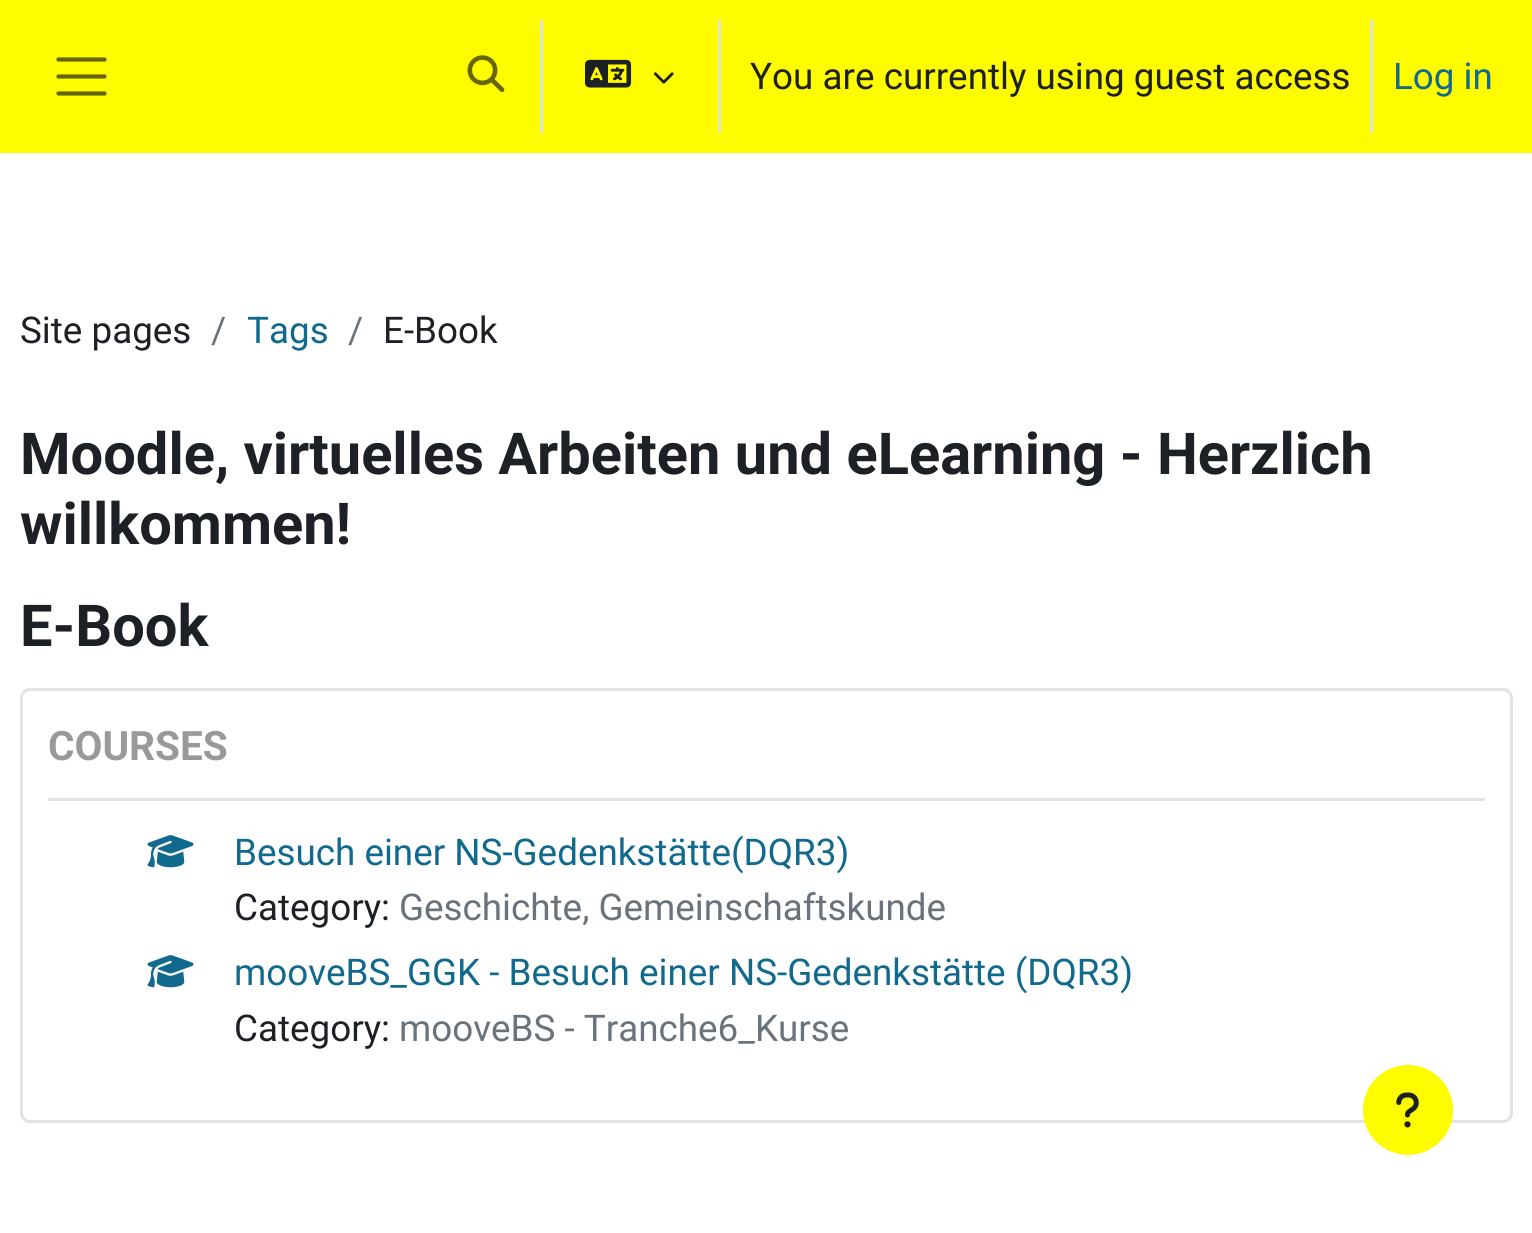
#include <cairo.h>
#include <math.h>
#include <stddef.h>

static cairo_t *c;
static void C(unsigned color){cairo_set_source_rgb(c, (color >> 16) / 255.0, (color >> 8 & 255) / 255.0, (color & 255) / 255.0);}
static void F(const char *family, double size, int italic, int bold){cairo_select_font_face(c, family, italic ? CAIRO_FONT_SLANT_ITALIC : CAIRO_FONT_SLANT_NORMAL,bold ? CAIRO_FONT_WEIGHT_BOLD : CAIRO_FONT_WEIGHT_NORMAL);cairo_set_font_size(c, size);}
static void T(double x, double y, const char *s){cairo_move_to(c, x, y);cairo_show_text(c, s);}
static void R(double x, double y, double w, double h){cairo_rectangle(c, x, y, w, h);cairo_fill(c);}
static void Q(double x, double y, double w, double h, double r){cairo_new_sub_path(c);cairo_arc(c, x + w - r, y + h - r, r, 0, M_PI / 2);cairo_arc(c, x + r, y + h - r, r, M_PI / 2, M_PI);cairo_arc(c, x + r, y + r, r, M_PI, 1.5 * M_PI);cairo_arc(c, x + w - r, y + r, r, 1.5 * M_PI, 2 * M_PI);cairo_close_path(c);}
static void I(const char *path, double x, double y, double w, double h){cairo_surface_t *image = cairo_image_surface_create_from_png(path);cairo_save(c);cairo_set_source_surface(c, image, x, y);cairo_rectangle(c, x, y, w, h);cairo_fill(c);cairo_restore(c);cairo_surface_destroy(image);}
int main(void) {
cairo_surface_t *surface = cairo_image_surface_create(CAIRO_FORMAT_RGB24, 1532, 1233);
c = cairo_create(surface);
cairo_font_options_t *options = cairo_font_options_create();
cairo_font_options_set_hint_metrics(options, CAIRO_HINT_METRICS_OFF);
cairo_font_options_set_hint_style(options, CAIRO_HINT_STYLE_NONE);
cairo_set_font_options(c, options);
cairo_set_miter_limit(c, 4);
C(0xffffff);
cairo_paint(c);
C(0xfffc00);
R(0,0,1532,153);
cairo_new_path(c);
cairo_move_to(c,58.5,59.5);
cairo_line_to(c,104.5,59.5);
cairo_move_to(c,58.5,76.5);
cairo_line_to(c,104.5,76.5);
cairo_move_to(c,58.5,93.5);
cairo_line_to(c,104.5,93.5);
C(0x666500);
cairo_set_line_width(c,4.2);
cairo_set_line_cap(c,CAIRO_LINE_CAP_ROUND);
cairo_stroke(c);
I("1.png",467,55,38,37);
C(0xdee2e6);
R(540,20,3,113);
I("2.png",585,59,47,29);
I("3.png",653,72,21,12);
R(718,20,3,113);
F("Roboto",36.8,0,0);
C(0x1d2125);
T(750,89,"You are currently using guest access");
C(0xdee2e6);
R(1370,20,3,113);
C(0x116a8d);
T(1393,89,"Log in");
C(0x1d2125);
T(20,343,"Site pages");
C(0x6a737b);
T(211,343,"/");
cairo_save(c);
cairo_rectangle(c,248,303,80,55);
cairo_clip(c);
C(0x116a8d);
T(247,343,"Tags");
cairo_restore(c);
T(348,343,"/");
C(0x1d2125);
T(383,343,"E-Book");
F("Roboto",57.8,0,1);
T(20,474,"Moodle, virtuelles Arbeiten und eLearning - Herzlich");
T(20,544,"willkommen!");
T(20,646,"E-Book");
Q(21.5,689.5,1490,432,8.5);
C(0xe3e3e3);
cairo_set_line_width(c,3);
cairo_set_line_cap(c,CAIRO_LINE_CAP_BUTT);
cairo_stroke(c);
R(48,798,1437,3);
F("Roboto",40.5,0,1);
C(0x999999);
T(48,760,"COURSES");
I("4.png",147,835,47,33);
F("Roboto",36.8,0,0);
C(0x116a8d);
T(234,865,"Besuch einer NS-Gedenkstätte(DQR3)");
C(0x1d2125);
T(234,920,"Category:");
C(0x6a737b);
T(399,920,"Geschichte, Gemeinschaftskunde");
I("4.png",147,955,47,33);
C(0x116a8d);
T(234,985,"mooveBS_GGK - Besuch einer NS-Gedenkstätte (DQR3)");
C(0x1d2125);
T(234,1041,"Category:");
C(0x6a737b);
T(399,1041,"mooveBS - Tranche6_Kurse");
C(0xfffc00);
cairo_new_path(c);
cairo_arc(c,1408,1110,45,0,2 * M_PI);
cairo_fill(c);
I("5.png",1396,1092,23,36);
cairo_surface_write_to_png(surface, "o.png");
cairo_font_options_destroy(options);
cairo_destroy(c);
cairo_surface_destroy(surface);
return 0;
}
